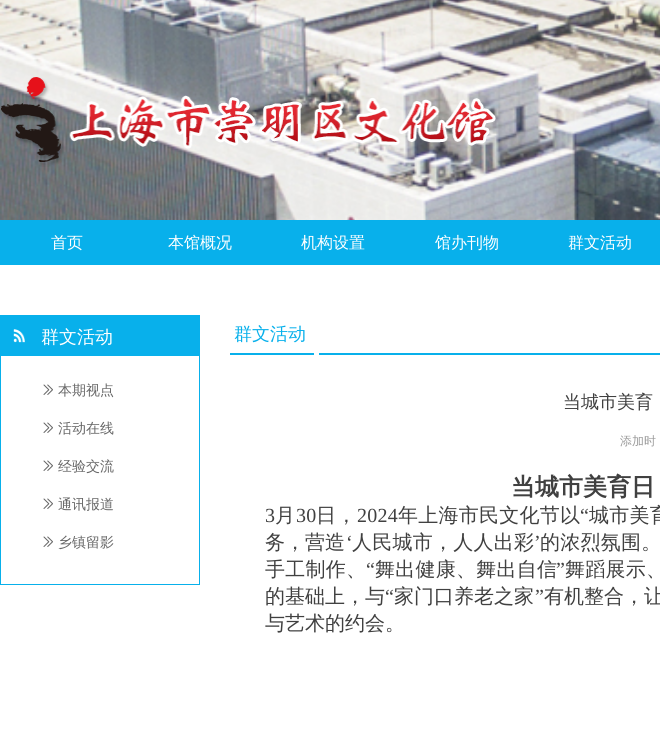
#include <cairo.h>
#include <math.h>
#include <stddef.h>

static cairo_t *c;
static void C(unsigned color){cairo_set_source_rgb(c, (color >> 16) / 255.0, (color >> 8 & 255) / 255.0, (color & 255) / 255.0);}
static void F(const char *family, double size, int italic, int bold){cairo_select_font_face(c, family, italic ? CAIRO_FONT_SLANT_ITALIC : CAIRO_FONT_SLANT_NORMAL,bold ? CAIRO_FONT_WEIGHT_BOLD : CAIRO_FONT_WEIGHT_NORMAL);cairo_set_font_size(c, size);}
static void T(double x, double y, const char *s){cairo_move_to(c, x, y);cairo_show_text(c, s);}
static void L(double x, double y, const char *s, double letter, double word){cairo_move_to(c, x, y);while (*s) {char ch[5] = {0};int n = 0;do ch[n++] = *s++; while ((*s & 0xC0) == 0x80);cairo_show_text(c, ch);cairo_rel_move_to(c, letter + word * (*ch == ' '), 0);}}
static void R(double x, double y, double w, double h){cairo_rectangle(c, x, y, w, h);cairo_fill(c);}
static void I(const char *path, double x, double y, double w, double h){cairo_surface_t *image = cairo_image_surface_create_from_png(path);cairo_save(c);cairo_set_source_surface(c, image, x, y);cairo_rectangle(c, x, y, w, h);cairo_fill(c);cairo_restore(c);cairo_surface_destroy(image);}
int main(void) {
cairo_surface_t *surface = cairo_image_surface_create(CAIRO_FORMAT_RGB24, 660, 742);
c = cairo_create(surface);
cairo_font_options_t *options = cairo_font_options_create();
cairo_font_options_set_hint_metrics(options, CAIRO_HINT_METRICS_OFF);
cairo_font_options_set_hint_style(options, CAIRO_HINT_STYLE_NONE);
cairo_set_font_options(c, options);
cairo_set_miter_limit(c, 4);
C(0xffffff);
cairo_paint(c);
I("1.png",0,0,660,220);
I("2.png",1,77,495,90);
C(0x08b0eb);
R(0,220,660,45);
F("WenQuanYi Zen Hei Medium",16,0,0);
C(0xffffff);
T(51,248,"首页");
T(168,248,"本馆概况");
T(301,248,"机构设置");
T(435,248,"馆办刊物");
T(568,248,"群文活动");
cairo_rectangle(c,.5,315.5,199,269);
C(0x08b0eb);
cairo_set_line_width(c,1);
cairo_stroke(c);
R(1,316,198,40);
I("3.png",13,329,12,14);
F("WenQuanYi Zen Hei Medium",18,0,0);
C(0xffffff);
T(41,343,"群文活动");
I("4.png",43,384,10,11);
F("WenQuanYi Zen Hei Medium",14,0,0);
C(0x666666);
T(58,395,"本期视点");
I("4.png",43,422,10,11);
T(58,433,"活动在线");
I("4.png",43,460,10,11);
T(58,471,"经验交流");
I("4.png",43,498,10,11);
T(58,509,"通讯报道");
I("4.png",43,536,10,11);
T(58,547,"乡镇留影");
I("5.png",230,353,430,2);
F("WenQuanYi Zen Hei Medium",18,0,0);
C(0x08b0eb);
T(234,340,"群文活动");
C(0x404040);
T(563,408,"当城市美育");
F("WenQuanYi Zen Hei Medium",12,0,0);
C(0x999999);
T(620,445,"添加时");
F("WenQuanYi Zen Hei",24,0,1);
C(0x404040);
T(511,495,"当城市美育日");
F("Liberation Serif",20,0,0);
L(265,522,"3",.25,0);
F("WenQuanYi Zen Hei Medium",20,0,0);
L(275,522,"月",.25,0);
F("Liberation Serif",20,0,0);
L(296,522,"30",.25,0);
F("WenQuanYi Zen Hei Medium",20,0,0);
L(316,522,"日，",.25,0);
F("Liberation Serif",20,0,0);
L(357,522,"2024",.25,0);
F("WenQuanYi Zen Hei Medium",20,0,0);
L(398,522,"年上海市民文化节以",.25,0);
F("Liberation Serif",20,0,0);
L(580,522,"“",.25,0);
F("WenQuanYi Zen Hei Medium",20,0,0);
L(589,522,"城市美育",.25,0);
T(265,549,"务，营造");
F("Liberation Serif",20,0,0);
L(346,549,"‘",.25,0);
F("WenQuanYi Zen Hei Medium",20,0,0);
L(352,549,"人民城市，人人出彩",.25,0);
F("Liberation Serif",20,0,0);
L(534,549,"’",.25,0);
F("WenQuanYi Zen Hei Medium",20,0,0);
L(540,549,"的浓烈氛围。",.25,0);
L(265,576,"手工制作、",.25,0);
F("Liberation Serif",20,0,0);
L(366,576,"“",.25,0);
F("WenQuanYi Zen Hei Medium",20,0,0);
L(375,576,"舞出健康、舞出自信",.25,0);
F("Liberation Serif",20,0,0);
L(556,576,"”",.25,0);
F("WenQuanYi Zen Hei Medium",20,0,0);
L(565,576,"舞蹈展示、",.25,0);
T(265,603,"的基础上，与");
F("Liberation Serif",20,0,0);
T(385,603,"“");
F("WenQuanYi Zen Hei Medium",20,0,0);
T(394,603,"家门口养老之家");
F("Liberation Serif",20,0,0);
T(535,603,"”");
F("WenQuanYi Zen Hei Medium",20,0,0);
T(544,603,"有机整合，让");
T(265,630,"与艺术的约会。");
cairo_surface_write_to_png(surface, "o.png");
cairo_font_options_destroy(options);
cairo_destroy(c);
cairo_surface_destroy(surface);
return 0;
}
